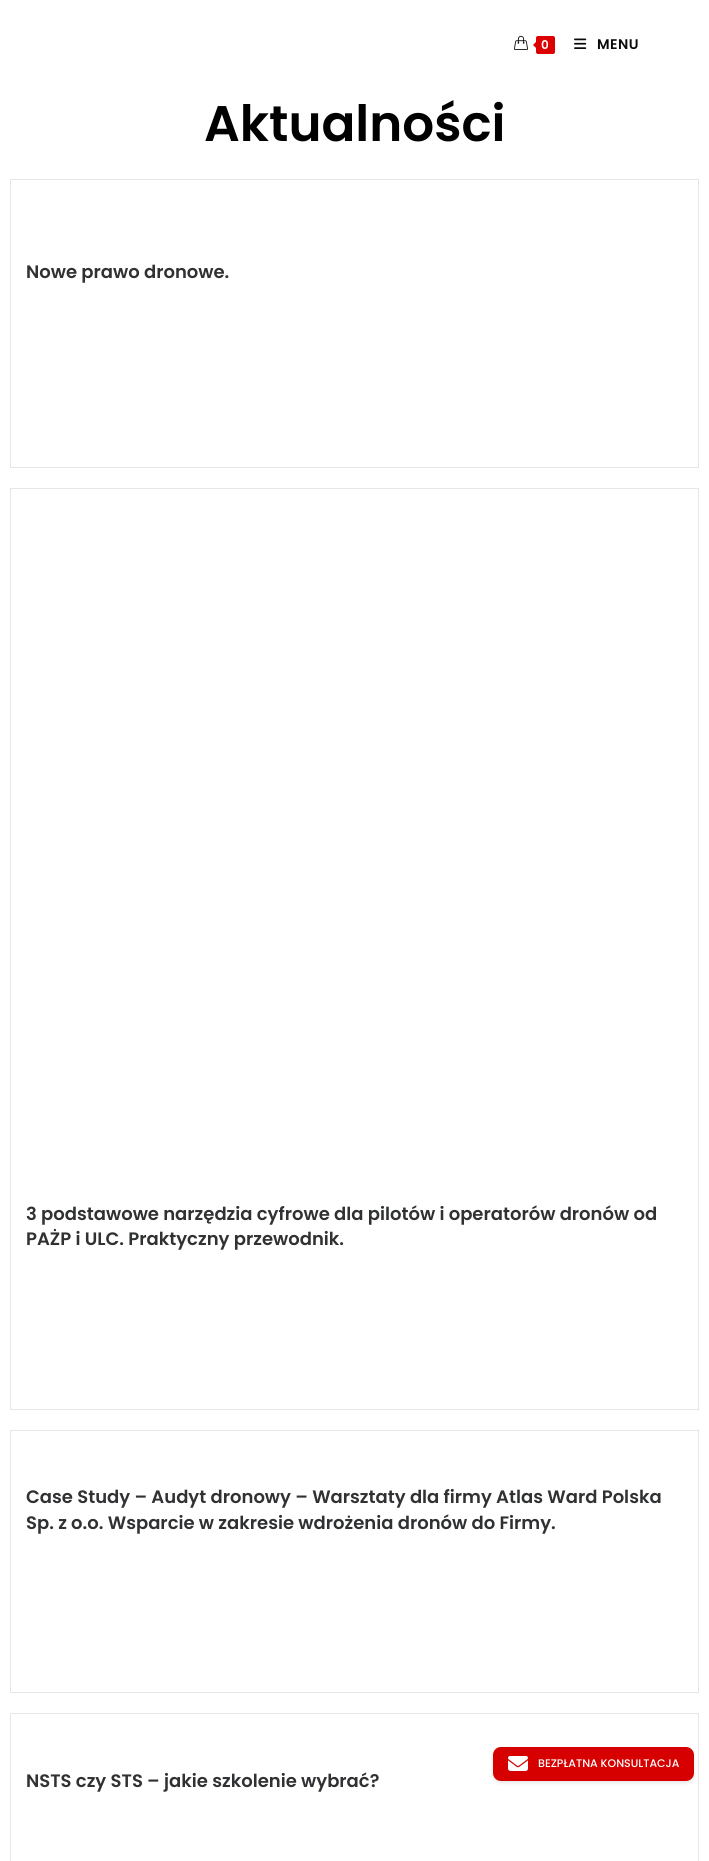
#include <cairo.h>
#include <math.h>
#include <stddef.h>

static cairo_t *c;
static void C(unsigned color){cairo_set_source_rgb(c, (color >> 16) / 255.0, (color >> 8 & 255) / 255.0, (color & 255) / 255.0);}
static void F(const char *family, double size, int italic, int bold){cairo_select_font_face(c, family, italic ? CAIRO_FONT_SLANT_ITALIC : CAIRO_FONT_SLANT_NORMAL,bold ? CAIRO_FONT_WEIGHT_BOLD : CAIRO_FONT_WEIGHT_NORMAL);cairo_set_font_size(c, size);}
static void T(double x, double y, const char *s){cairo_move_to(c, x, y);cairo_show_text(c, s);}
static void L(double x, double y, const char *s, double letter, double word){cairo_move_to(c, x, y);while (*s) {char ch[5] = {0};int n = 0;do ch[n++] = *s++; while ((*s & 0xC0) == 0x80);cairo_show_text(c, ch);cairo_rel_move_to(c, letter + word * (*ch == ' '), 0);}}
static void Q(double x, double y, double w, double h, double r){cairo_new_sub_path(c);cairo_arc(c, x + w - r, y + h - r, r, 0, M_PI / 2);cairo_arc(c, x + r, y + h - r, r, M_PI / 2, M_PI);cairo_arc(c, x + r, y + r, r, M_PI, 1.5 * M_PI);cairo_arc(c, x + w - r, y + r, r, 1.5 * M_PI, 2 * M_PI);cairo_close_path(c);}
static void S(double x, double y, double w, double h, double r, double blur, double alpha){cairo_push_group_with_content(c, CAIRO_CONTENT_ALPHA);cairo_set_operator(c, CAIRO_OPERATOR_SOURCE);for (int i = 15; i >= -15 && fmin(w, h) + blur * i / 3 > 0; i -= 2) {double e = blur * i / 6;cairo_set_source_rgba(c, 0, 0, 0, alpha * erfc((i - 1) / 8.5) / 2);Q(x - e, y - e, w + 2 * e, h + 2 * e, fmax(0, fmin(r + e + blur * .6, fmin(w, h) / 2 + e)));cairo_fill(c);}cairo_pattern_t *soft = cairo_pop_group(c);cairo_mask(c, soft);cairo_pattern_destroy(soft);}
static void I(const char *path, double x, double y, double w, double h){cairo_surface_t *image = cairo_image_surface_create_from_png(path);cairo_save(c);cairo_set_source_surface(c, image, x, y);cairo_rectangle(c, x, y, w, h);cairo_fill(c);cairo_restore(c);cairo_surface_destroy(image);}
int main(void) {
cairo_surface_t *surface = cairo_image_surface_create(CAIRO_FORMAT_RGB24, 709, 1861);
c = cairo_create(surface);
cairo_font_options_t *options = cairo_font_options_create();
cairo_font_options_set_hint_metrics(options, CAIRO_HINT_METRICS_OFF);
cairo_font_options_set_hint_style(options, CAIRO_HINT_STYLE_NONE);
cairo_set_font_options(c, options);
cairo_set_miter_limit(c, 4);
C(0xffffff);
cairo_paint(c);
I("1.png",514,35,14,15);
C(0xdd0000);
Q(536,36,19,18,2);
cairo_fill(c);
cairo_new_path(c);
cairo_move_to(c,538,40);
cairo_line_to(c,538,50);
cairo_line_to(c,533,45);
cairo_close_path(c);
cairo_fill(c);
F("Poppins SemiBold",12,0,0);
C(0xffffff);
L(541,49,"0",.5,0);
I("2.png",574,38,13,11);
F("Poppins SemiBold",14,0,0);
C(0x0a0a0a);
L(597,49,"MENU",.5,0);
F("Poppins SemiBold",50,0,0);
C(0x000000);
T(204,141,"Aktualności");
cairo_rectangle(c,10.5,179.5,688,288);
C(0xe6e6e6);
cairo_set_line_width(c,1);
cairo_stroke(c);
F("Poppins SemiBold",18,0,0);
C(0x303133);
T(26,278,"Nowe prawo dronowe.");
cairo_rectangle(c,10.5,488.5,688,921);
C(0xe6e6e6);
cairo_stroke(c);
C(0x303133);
T(26,1220,"3 podstawowe narzędzia cyfrowe dla pilotów i operatorów dronów od");
T(26,1245,"PAŻP i ULC. Praktyczny przewodnik.");
cairo_rectangle(c,10.5,1430.5,688,262);
C(0xe6e6e6);
cairo_stroke(c);
C(0x303133);
T(26,1503,"Case Study – Audyt dronowy – Warsztaty dla firmy Atlas Ward Polska");
T(26,1529,"Sp. z o.o. Wsparcie w zakresie wdrożenia dronów do Firmy.");
cairo_rectangle(c,10.5,1713.5,688,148);
C(0xe6e6e6);
cairo_stroke(c);
C(0x303133);
T(26,1787,"NSTS czy STS – jakie szkolenie wybrać?");
C(0x000000);
S(493,1749,201,34,8,2,.1);
C(0xd60000);
Q(493,1747,201,34,8);
cairo_fill(c);
I("3.png",508,1756,20,15);
F("Poppins Medium",11,0,0);
C(0xffffff);
T(538,1767,"BEZPŁATNA KONSULTACJA");
cairo_surface_write_to_png(surface, "o.png");
cairo_font_options_destroy(options);
cairo_destroy(c);
cairo_surface_destroy(surface);
return 0;
}
